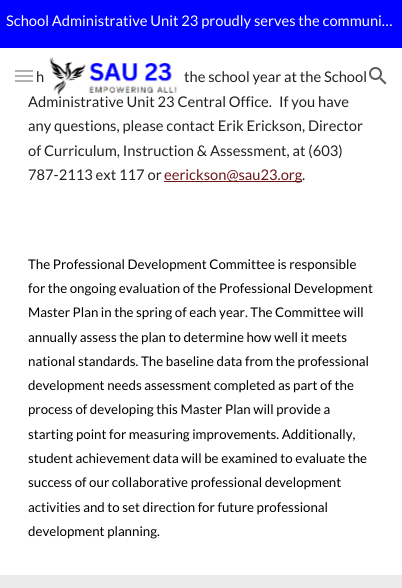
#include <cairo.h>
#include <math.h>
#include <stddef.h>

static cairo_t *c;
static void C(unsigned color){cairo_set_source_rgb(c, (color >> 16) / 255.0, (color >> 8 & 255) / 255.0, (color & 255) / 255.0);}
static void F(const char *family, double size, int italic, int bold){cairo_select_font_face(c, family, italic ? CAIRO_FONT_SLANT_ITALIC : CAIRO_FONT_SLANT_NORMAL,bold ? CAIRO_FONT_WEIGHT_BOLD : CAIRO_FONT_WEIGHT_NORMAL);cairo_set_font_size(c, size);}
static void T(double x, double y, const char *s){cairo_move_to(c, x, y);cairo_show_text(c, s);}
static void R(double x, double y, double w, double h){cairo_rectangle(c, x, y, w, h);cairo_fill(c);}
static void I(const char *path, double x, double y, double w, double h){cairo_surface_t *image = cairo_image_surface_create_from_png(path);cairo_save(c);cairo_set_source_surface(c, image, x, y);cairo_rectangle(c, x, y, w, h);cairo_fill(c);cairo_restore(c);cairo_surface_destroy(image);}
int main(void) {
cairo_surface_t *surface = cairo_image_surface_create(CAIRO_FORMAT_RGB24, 402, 588);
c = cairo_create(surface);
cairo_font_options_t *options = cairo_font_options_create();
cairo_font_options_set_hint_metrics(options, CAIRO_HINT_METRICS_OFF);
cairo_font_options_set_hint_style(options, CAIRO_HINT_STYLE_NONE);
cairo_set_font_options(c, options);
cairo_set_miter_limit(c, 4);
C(0xffffff);
cairo_paint(c);
C(0x0000ff);
R(0,0,402,48);
F("Lato",14.7,0,0);
C(0xffffff);
T(6,26,"School Administrative Unit 23 proudly serves the communi…");
C(0xb2b2b2);
R(15,70,18,2);
R(15,75,18,2);
R(15,80,18,2);
C(0x212121);
T(28,107,"Administrative Unit 23 Central Office.");
I("1.png",47,57,131,40);
I("2.png",369,67,18,18);
T(36,82,"h");
T(184,82,"the school year at the School");
T(279,107,"If you have");
T(28,131,"any questions, please contact Erik Erickson, Director");
T(28,156,"of Curriculum, Instruction & Assessment, at (603)");
T(28,180,"787-2113 ext 117 or");
C(0x6d1616);
R(164,181,138,1);
T(164,180,"eerickson@sau23.org");
C(0x212121);
T(302,180,".");
F("Lato",13.3,0,0);
C(0x000000);
T(28,269,"The Professional Development Committee is responsible");
T(28,293,"for the ongoing evaluation of the Professional Development");
T(28,317,"Master Plan in the spring of each year. The Committee will");
T(28,342,"annually assess the plan to determine how well it meets");
T(28,366,"national standards. The baseline data from the professional");
T(28,390,"development needs assessment completed as part of the");
T(28,414,"process of developing this Master Plan will provide a");
T(28,439,"starting point for measuring improvements. Additionally,");
T(28,463,"student achievement data will be examined to evaluate the");
T(28,487,"success of our collaborative professional development");
T(28,512,"activities and to set direction for future professional");
T(28,536,"development planning.");
C(0xebebeb);
R(0,575,402,13);
cairo_surface_write_to_png(surface, "o.png");
cairo_font_options_destroy(options);
cairo_destroy(c);
cairo_surface_destroy(surface);
return 0;
}
